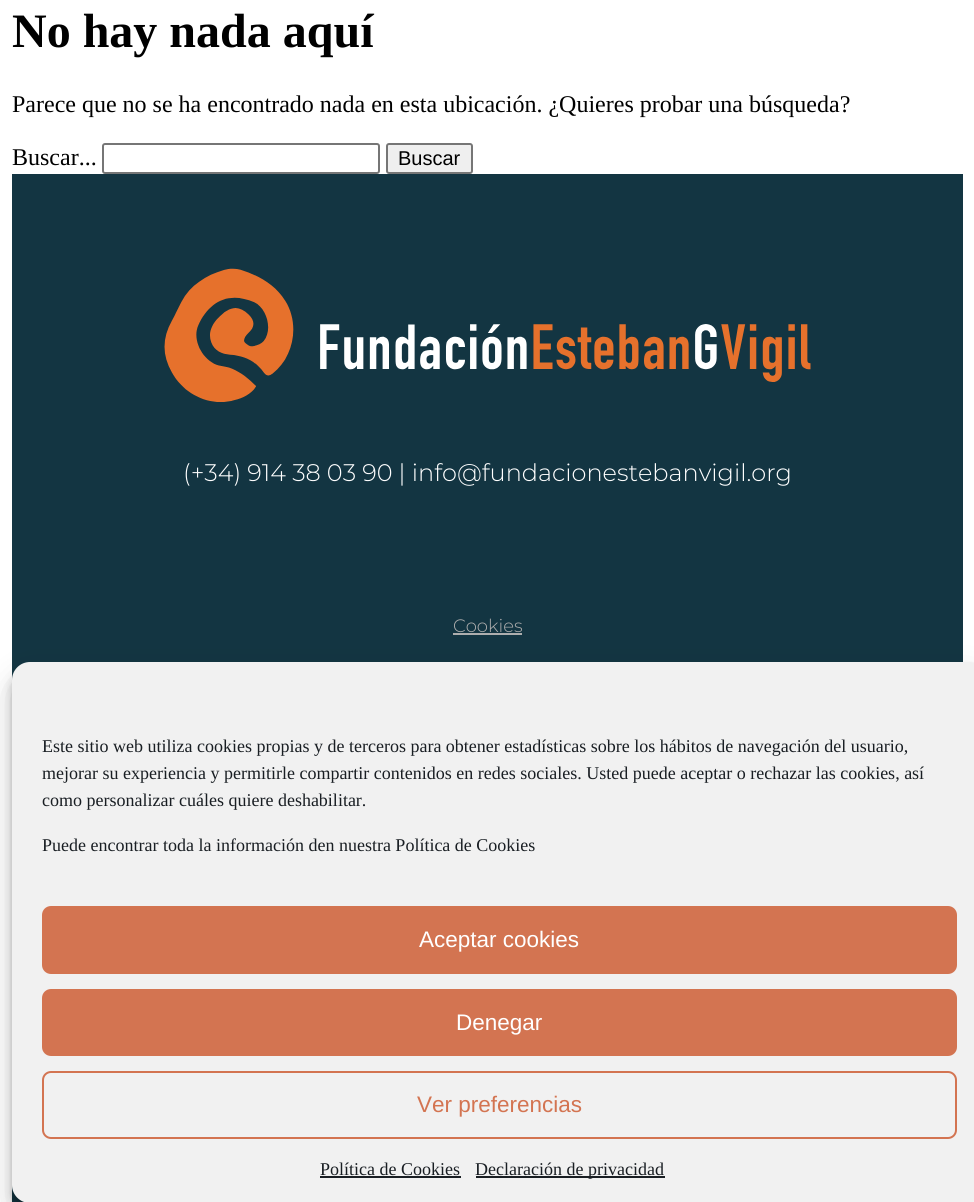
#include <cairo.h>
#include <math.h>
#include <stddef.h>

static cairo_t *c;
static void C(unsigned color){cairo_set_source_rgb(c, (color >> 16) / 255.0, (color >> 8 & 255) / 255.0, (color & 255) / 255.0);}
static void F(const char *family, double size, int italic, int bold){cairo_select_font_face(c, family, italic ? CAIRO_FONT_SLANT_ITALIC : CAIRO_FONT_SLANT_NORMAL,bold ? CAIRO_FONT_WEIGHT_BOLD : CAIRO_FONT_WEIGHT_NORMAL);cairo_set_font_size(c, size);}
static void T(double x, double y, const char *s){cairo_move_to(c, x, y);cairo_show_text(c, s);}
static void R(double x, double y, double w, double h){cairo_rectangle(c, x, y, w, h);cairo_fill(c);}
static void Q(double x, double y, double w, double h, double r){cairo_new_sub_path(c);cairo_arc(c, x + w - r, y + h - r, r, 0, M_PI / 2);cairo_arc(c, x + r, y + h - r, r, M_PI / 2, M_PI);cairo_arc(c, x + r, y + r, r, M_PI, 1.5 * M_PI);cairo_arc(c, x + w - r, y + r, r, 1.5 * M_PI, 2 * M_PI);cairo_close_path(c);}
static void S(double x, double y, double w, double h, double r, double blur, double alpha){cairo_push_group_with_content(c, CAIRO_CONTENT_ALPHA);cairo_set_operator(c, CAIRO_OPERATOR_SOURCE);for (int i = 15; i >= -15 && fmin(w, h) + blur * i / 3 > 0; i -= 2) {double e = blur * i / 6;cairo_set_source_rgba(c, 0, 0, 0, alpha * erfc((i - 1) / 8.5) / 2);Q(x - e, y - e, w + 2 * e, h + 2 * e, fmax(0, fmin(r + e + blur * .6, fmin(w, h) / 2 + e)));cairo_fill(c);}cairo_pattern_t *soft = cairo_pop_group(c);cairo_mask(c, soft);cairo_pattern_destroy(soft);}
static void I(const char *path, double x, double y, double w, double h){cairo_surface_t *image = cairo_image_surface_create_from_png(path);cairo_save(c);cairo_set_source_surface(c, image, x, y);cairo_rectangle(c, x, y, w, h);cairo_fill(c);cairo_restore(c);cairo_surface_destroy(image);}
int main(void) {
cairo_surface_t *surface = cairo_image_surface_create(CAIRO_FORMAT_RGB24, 974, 1202);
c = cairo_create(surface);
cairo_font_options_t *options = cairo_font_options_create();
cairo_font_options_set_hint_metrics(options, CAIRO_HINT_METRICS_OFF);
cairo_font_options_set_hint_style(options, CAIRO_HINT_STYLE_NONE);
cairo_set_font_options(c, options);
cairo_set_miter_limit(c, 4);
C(0xffffff);
cairo_paint(c);
F("Liberation Serif",48,0,1);
C(0x000000);
T(12,47,"No hay nada aquí");
F("Liberation Serif",24,0,0);
T(12,112,"Parece que no se ha encontrado nada en esta ubicación. ¿Quieres probar una búsqueda?");
T(12,165,"Buscar...");
Q(103,144,276,29,2);
C(0x767676);
cairo_stroke(c);
C(0xefefef);
Q(387,144,85,29,2);
cairo_fill_preserve(c);
C(0x767676);
cairo_stroke(c);
F("Liberation Sans",20,0,0);
C(0x000000);
T(398,165,"Buscar");
C(0x133542);
R(12,174,951,1028);
I("1.png",164,268,647,134);
F("Montserrat Light",24,0,0);
C(0xffffff);
T(183,481,"(+34) 914 38 03 90 | info@fundacionestebanvigil.org");
F("Montserrat Light",18,0,0);
C(0xaeaeae);
T(453,632,"Cookies");
R(453,633,69,2);
C(0x000000);
S(12,671,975,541,18,4.5,.23);
S(12,677,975,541,18,15,.19);
C(0xf1f1f1);
Q(12,662,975,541,18);
cairo_fill(c);
F("Liberation Serif",18,0,0);
C(0x191e23);
T(42,752,"Este sitio web utiliza cookies propias y de terceros para obtener estadísticas sobre los hábitos de navegación del usuario,");
T(42,779,"mejorar su experiencia y permitirle compartir contenidos en redes sociales. Usted puede aceptar o rechazar las cookies, así");
T(42,806,"como personalizar cuáles quiere deshabilitar.");
T(42,851,"Puede encontrar toda la información den nuestra Política de Cookies");
C(0xd37451);
Q(43,907,913,66,8);
cairo_fill_preserve(c);
cairo_stroke(c);
F("Liberation Sans",22.5,0,0);
C(0xffffff);
T(419,947,"Aceptar cookies");
C(0xd37451);
Q(43,990,913,65,8);
cairo_fill_preserve(c);
cairo_stroke(c);
C(0xffffff);
T(456,1030,"Denegar");
Q(43,1072,913,66,8);
C(0xd37451);
cairo_stroke(c);
T(417,1112,"Ver preferencias");
F("Liberation Serif",18,0,0);
C(0x191e23);
T(320,1175,"Política de Cookies");
R(320,1176,141,2);
R(476,1176,189,2);
T(475,1175,"Declaración de privacidad");
cairo_surface_write_to_png(surface, "o.png");
cairo_font_options_destroy(options);
cairo_destroy(c);
cairo_surface_destroy(surface);
return 0;
}
